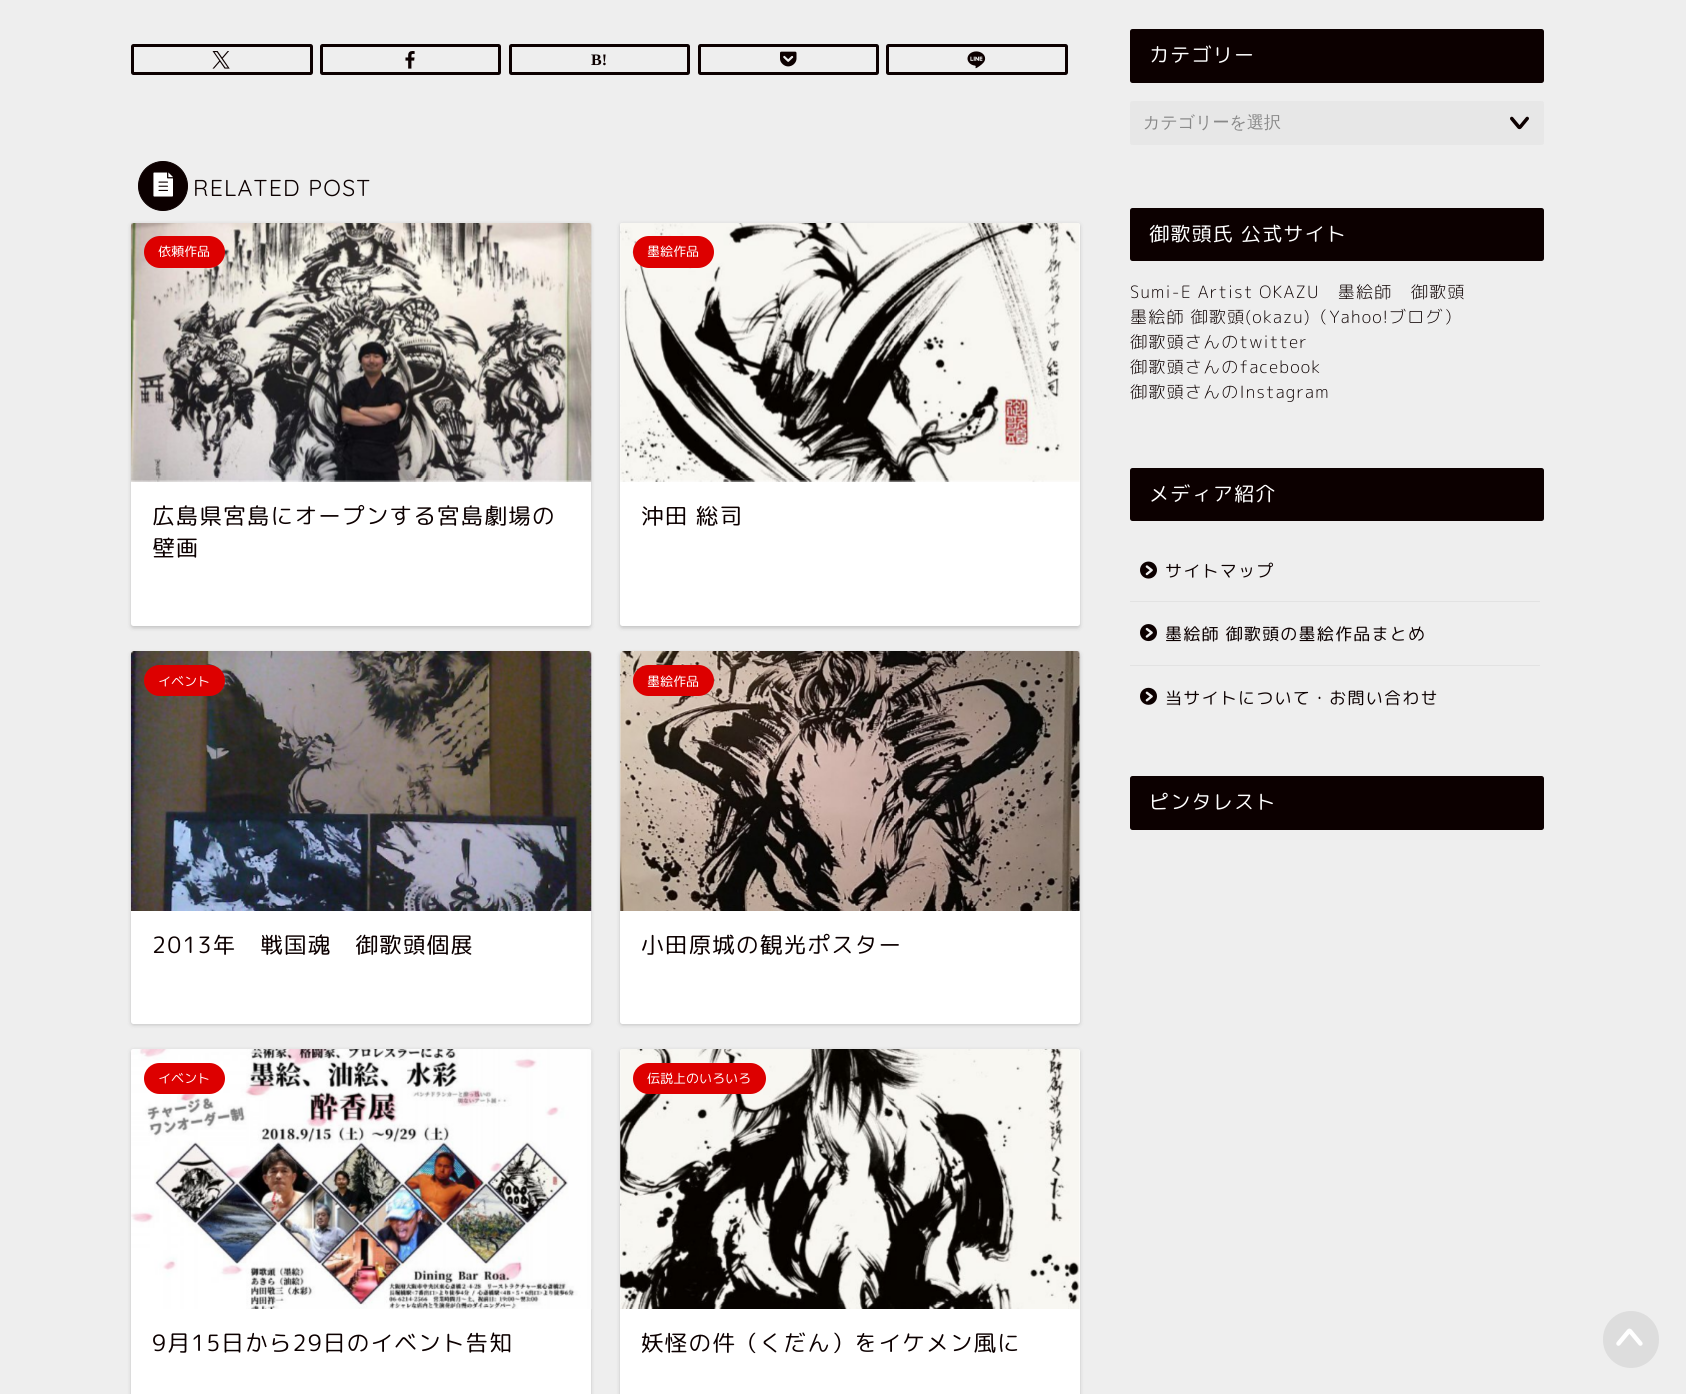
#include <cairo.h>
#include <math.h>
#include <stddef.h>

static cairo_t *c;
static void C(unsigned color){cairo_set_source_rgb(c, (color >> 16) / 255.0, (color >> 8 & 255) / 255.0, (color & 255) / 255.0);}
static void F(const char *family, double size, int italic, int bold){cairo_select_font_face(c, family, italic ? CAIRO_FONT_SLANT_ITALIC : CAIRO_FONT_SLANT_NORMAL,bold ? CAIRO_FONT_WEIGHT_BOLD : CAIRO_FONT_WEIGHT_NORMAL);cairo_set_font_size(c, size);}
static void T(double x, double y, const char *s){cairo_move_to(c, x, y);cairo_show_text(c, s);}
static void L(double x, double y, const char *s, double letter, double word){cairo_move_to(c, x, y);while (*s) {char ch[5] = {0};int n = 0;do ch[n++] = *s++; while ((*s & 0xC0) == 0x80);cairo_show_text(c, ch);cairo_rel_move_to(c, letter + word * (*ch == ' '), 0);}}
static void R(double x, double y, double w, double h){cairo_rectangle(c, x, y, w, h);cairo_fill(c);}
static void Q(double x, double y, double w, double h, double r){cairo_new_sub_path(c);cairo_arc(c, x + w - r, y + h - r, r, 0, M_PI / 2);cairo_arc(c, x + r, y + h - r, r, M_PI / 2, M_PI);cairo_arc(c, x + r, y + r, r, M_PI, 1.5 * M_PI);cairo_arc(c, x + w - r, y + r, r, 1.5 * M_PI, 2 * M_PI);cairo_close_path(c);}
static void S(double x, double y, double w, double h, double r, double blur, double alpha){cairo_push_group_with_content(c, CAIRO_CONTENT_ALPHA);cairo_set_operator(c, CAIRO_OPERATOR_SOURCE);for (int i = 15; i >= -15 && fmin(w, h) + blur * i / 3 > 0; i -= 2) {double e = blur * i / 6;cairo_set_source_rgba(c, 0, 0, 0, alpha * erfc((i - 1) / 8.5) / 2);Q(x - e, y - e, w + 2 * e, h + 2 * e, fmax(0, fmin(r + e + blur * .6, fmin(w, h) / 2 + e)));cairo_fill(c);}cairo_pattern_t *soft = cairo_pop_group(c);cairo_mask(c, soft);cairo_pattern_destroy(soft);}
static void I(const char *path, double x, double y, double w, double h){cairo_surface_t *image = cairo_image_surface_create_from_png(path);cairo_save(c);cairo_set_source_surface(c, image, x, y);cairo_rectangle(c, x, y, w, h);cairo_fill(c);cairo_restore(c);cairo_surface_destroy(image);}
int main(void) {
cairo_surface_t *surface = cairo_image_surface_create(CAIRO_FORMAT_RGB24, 1686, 1394);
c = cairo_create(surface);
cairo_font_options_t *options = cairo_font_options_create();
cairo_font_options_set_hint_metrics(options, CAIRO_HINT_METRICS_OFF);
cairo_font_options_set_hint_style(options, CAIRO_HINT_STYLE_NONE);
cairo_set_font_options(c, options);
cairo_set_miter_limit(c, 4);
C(0xeeeeee);
cairo_paint(c);
Q(132.5,45.5,179,28,1);
C(0x0c0000);
cairo_set_line_width(c,3);
cairo_stroke(c);
I("1.png",212,51,18,18);
Q(321.5,45.5,178,28,1);
cairo_stroke(c);
I("2.png",405,51,10,18);
Q(510.5,45.5,178,28,1);
cairo_stroke(c);
F("Liberation Serif",16,0,1);
T(591,65,"B!");
Q(699.5,45.5,178,28,1);
cairo_stroke(c);
I("3.png",780,51,17,16);
Q(887.5,45.5,179,28,1);
cairo_stroke(c);
I("4.png",967,51,19,18);
cairo_arc(c,163,186,24.5,0,2 * M_PI);
cairo_fill_preserve(c);
cairo_set_line_width(c,1);
cairo_stroke(c);
I("5.png",153,172,20,25);
F("Quicksand",23,0,0);
L(193,196,"RELATED POST",1.25,0);
C(0x000000);
S(131,224,460,404,2.5,2,.18);
C(0xffffff);
Q(131,223,460,403,2.5);
cairo_fill(c);
I("6.png",131,223,461,259);
C(0xdd0000);
Q(144,236,81,32,16);
cairo_fill(c);
F("Rounded Mplus 1c",13,0,0);
C(0xffffff);
T(158,256,"依頼作品");
F("Rounded Mplus 1c",22.5,0,0);
C(0x0c0000);
L(152,524,"広島県宮島にオープンする宮島劇場の",1.25,0);
L(152,556,"壁画",1.25,0);
C(0x000000);
S(620,224,460,404,2.5,2,.18);
C(0xffffff);
Q(620,223,460,403,2.5);
cairo_fill(c);
I("7.png",620,223,460,259);
C(0xdd0000);
Q(633,236,81,32,16);
cairo_fill(c);
F("Rounded Mplus 1c",13,0,0);
C(0xffffff);
T(647,256,"墨絵作品");
F("Rounded Mplus 1c",22.5,0,0);
C(0x0c0000);
L(641,524,"沖田 総司",1.25,0);
C(0x000000);
S(131,653,460,372,2.5,2,.18);
C(0xffffff);
Q(131,651,460,373,2.5);
cairo_fill(c);
I("8.png",131,651,461,260);
C(0xdd0000);
Q(144,665,81,31,15.5);
cairo_fill(c);
F("Rounded Mplus 1c",13,0,0);
C(0xffffff);
T(158,686,"イベント");
F("Rounded Mplus 1c",22.5,0,0);
C(0x0c0000);
L(152,953,"2013年　戦国魂　御歌頭個展",1.25,0);
C(0x000000);
S(620,653,460,372,2.5,2,.18);
C(0xffffff);
Q(620,651,460,373,2.5);
cairo_fill(c);
I("9.png",620,651,460,260);
C(0xdd0000);
Q(633,665,81,31,15.5);
cairo_fill(c);
F("Rounded Mplus 1c",13,0,0);
C(0xffffff);
T(647,686,"墨絵作品");
F("Rounded Mplus 1c",22.5,0,0);
C(0x0c0000);
L(641,953,"小田原城の観光ポスター",1.25,0);
C(0x000000);
S(131,1050,460,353,2.5,2,.18);
C(0xffffff);
Q(131,1049,460,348,2.5);
cairo_fill(c);
I("10.png",131,1049,461,260);
C(0xdd0000);
Q(144,1063,81,31,15.5);
cairo_fill(c);
F("Rounded Mplus 1c",13,0,0);
C(0xffffff);
T(158,1083,"イベント");
F("Rounded Mplus 1c",22.5,0,0);
C(0x0c0000);
L(152,1351,"9月15日から29日のイベント告知",1.25,0);
C(0x000000);
S(620,1050,460,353,2.5,2,.18);
C(0xffffff);
Q(620,1049,460,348,2.5);
cairo_fill(c);
I("11.png",620,1049,460,260);
C(0xdd0000);
Q(633,1063,133,31,15.5);
cairo_fill(c);
F("Rounded Mplus 1c",13,0,0);
C(0xffffff);
T(647,1083,"伝説上のいろいろ");
F("Rounded Mplus 1c",22.5,0,0);
C(0x0c0000);
L(641,1351,"妖怪の件（くだん）をイケメン風に",1.25,0);
Q(1130,29,414,54,2.5);
cairo_fill(c);
F("Rounded Mplus 1c",20,0,0);
C(0xffffff);
L(1149,62,"カテゴリー",1.25,0);
C(0xe7e7e7);
Q(1130,101,414,44,2.5);
cairo_fill(c);
F("WenQuanYi Zen Hei Medium",17,0,0);
C(0x888888);
T(1143,128,"カテゴリーを選択");
I("12.png",1510,116,19,14);
C(0x0c0000);
Q(1130,208,414,53,2.5);
cairo_fill(c);
F("Rounded Mplus 1c",20,0,0);
C(0xffffff);
L(1149,241,"御歌頭氏 公式サイト",1.25,0);
F("Rounded Mplus 1c Light",17,0,0);
C(0x0c0000);
L(1130,298,"Sumi-E Artist OKAZU　墨絵師　御歌頭",1.25,0);
L(1130,323,"墨絵師 御歌頭(okazu)（Yahoo!ブログ）",1.25,0);
L(1130,348,"御歌頭さんのtwitter",1.25,0);
L(1130,373,"御歌頭さんのfacebook",1.25,0);
L(1130,398,"御歌頭さんのInstagram",1.25,0);
Q(1130,468,414,53,2.5);
cairo_fill(c);
F("Rounded Mplus 1c",20,0,0);
C(0xffffff);
L(1149,501,"メディア紹介",1.25,0);
C(0xe2e2e2);
R(1130,601,410,1);
I("13.png",1140,561,17,18);
F("Rounded Mplus 1c",17,0,0);
C(0x0c0000);
L(1165,577,"サイトマップ",1.25,0);
C(0xe2e2e2);
R(1130,665,410,1);
I("14.png",1140,624,17,18);
C(0x0c0000);
L(1165,640,"墨絵師 御歌頭の墨絵作品まとめ",1.25,0);
I("15.png",1140,687,17,18);
L(1165,704,"当サイトについて・お問い合わせ",1.25,0);
Q(1130,776,414,54,2.5);
cairo_fill(c);
F("Rounded Mplus 1c",20,0,0);
C(0xffffff);
L(1149,809,"ピンタレスト",1.25,0);
C(0xdddddd);
Q(1603,1311,56,57,28);
cairo_fill(c);
I("16.png",1616,1328,27,18);
cairo_surface_write_to_png(surface, "o.png");
cairo_font_options_destroy(options);
cairo_destroy(c);
cairo_surface_destroy(surface);
return 0;
}
